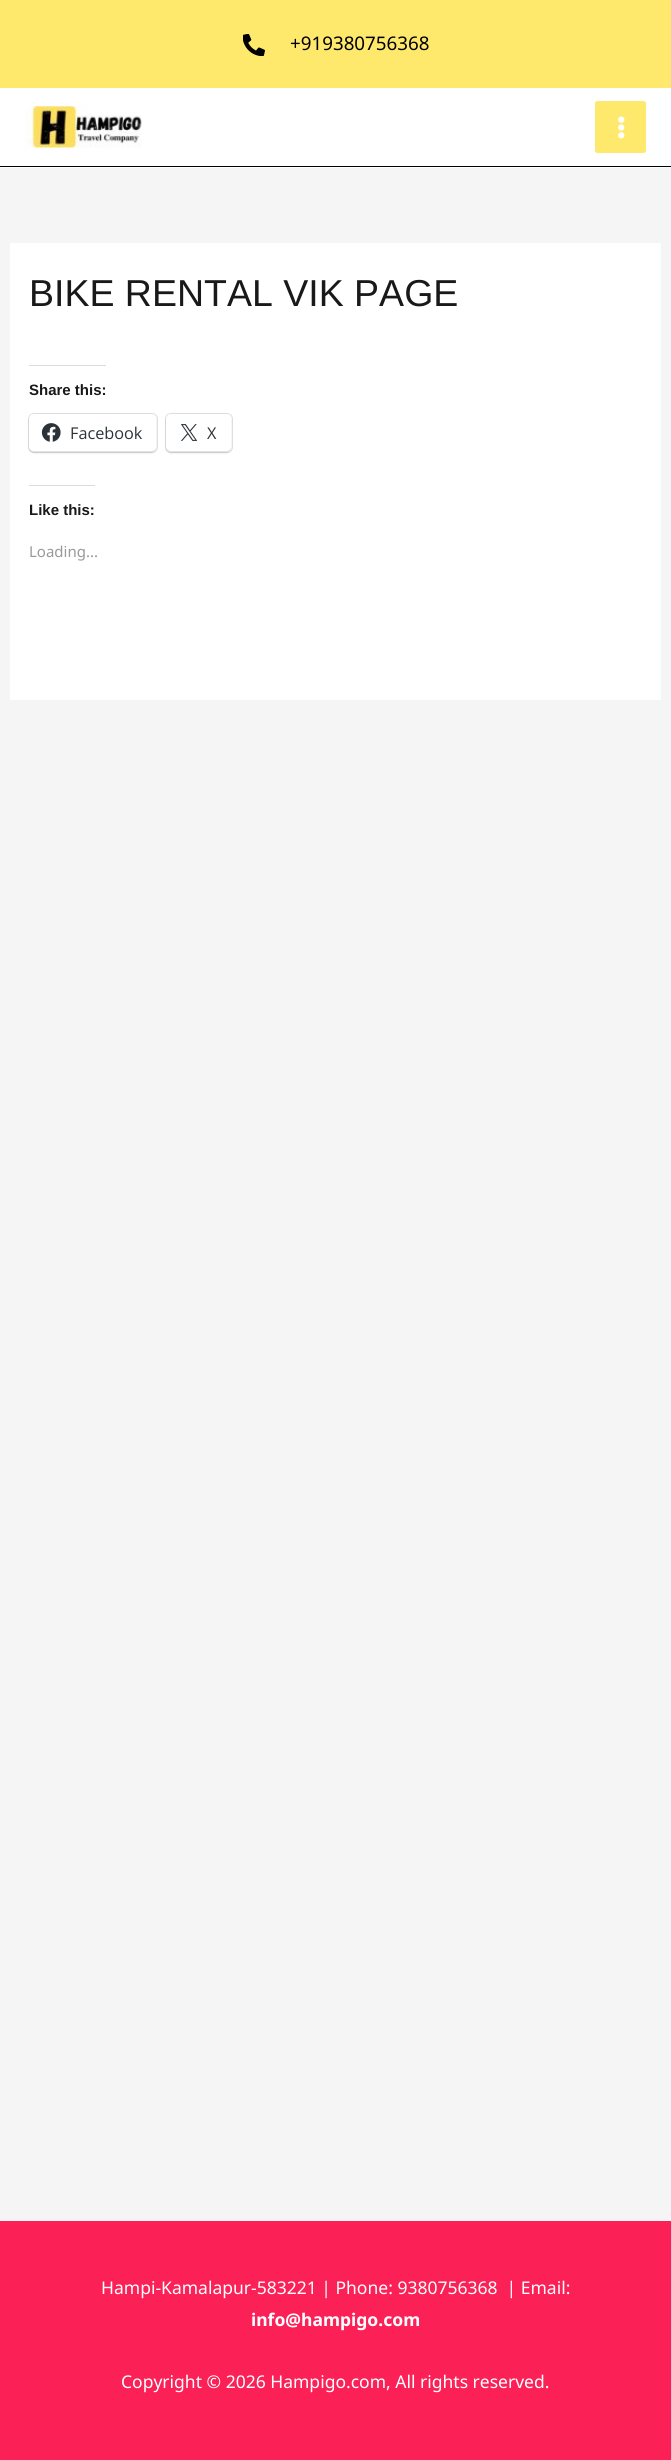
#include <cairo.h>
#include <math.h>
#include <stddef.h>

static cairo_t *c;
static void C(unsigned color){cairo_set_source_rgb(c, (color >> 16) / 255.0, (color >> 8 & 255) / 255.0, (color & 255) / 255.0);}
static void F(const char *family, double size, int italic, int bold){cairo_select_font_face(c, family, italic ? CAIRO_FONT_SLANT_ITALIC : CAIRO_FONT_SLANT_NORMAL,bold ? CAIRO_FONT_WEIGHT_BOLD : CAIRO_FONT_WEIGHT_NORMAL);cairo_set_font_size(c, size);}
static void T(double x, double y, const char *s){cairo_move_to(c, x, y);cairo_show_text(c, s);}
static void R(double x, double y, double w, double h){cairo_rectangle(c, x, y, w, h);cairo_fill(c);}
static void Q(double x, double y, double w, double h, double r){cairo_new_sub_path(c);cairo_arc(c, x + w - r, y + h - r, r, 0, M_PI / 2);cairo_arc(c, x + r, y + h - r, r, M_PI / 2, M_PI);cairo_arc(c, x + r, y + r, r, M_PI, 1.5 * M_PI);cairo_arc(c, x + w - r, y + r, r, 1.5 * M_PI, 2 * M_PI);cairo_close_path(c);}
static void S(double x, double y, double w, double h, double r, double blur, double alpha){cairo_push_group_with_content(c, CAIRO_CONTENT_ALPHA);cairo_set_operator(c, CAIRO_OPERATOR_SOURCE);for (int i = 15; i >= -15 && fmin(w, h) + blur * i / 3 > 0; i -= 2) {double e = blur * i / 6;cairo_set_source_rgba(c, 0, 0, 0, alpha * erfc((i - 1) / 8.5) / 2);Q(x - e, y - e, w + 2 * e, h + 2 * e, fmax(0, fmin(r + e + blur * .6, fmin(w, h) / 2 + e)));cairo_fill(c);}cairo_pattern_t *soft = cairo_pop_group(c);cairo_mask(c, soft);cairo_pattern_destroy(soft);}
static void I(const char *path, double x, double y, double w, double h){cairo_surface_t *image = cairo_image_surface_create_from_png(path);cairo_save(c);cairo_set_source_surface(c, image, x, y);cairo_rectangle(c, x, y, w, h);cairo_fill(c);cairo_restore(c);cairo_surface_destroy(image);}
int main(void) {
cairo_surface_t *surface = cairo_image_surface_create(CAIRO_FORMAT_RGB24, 671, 2460);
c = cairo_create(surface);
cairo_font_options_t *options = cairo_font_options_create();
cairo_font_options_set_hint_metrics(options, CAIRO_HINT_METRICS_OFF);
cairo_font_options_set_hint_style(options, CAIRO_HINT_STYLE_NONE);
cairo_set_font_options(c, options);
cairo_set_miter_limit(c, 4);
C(0xf5f5f5);
cairo_paint(c);
C(0xffe96d);
R(0,0,671,88);
I("1.png",243,34,22,22);
F("Noto Sans",18.75,0,0);
C(0x000000);
T(290,50,"+919380756368");
C(0xffffff);
R(0,88,671,80);
C(0x000000);
R(0,166,671,1);
I("2.png",25,106,117,42);
C(0xffe96d);
Q(595,101,51,52,2.5);
cairo_fill(c);
I("3.png",618,116,7,23);
C(0xffffff);
R(10,243,651,457);
F("Liberation Sans",37.5,0,0);
C(0x191919);
T(29,306,"BIKE RENTAL VIK PAGE");
C(0xdcdcde);
R(29,365,77,1);
F("Liberation Sans",15,0,1);
C(0x191919);
T(29,395,"Share this:");
Q(28.5,413.5,129,39,5.5);
C(0xe0e0e0);
cairo_set_line_width(c,1);
cairo_stroke(c);
C(0x000000);
S(29,415,127,38,5,1,.12);
C(0xffffff);
Q(29,414,127,37,5);
cairo_fill(c);
I("4.png",41,423,20,19);
F("Open Sans",16.25,0,0);
C(0x2c3338);
T(70,439,"Facebook");
Q(165.5,413.5,67,39,5.5);
C(0xe0e0e0);
cairo_stroke(c);
C(0x000000);
S(166,415,65,38,5,1,.12);
C(0xffffff);
Q(166,414,65,37,5);
cairo_fill(c);
I("5.png",180,424,18,17);
C(0x2c3338);
T(207,439,"X");
C(0xdcdcde);
R(29,485,66,1);
F("Liberation Sans",15,0,1);
C(0x191919);
T(29,515,"Like this:");
F("Noto Sans",15,0,0);
C(0x999999);
T(29,557,"Loading...");
C(0xfb2056);
R(0,2221,671,239);
F("Noto Sans",17.5,0,0);
C(0xffffff);
T(101,2294,"Hampi-Kamalapur-583221 | Phone: 9380756368  | Email:");
F("Noto Sans",17.5,0,1);
T(251,2326,"info@hampigo.com");
F("Noto Sans",17.5,0,0);
T(121,2388,"Copyright © 2026 Hampigo.com, All rights reserved.");
cairo_surface_write_to_png(surface, "o.png");
cairo_font_options_destroy(options);
cairo_destroy(c);
cairo_surface_destroy(surface);
return 0;
}
